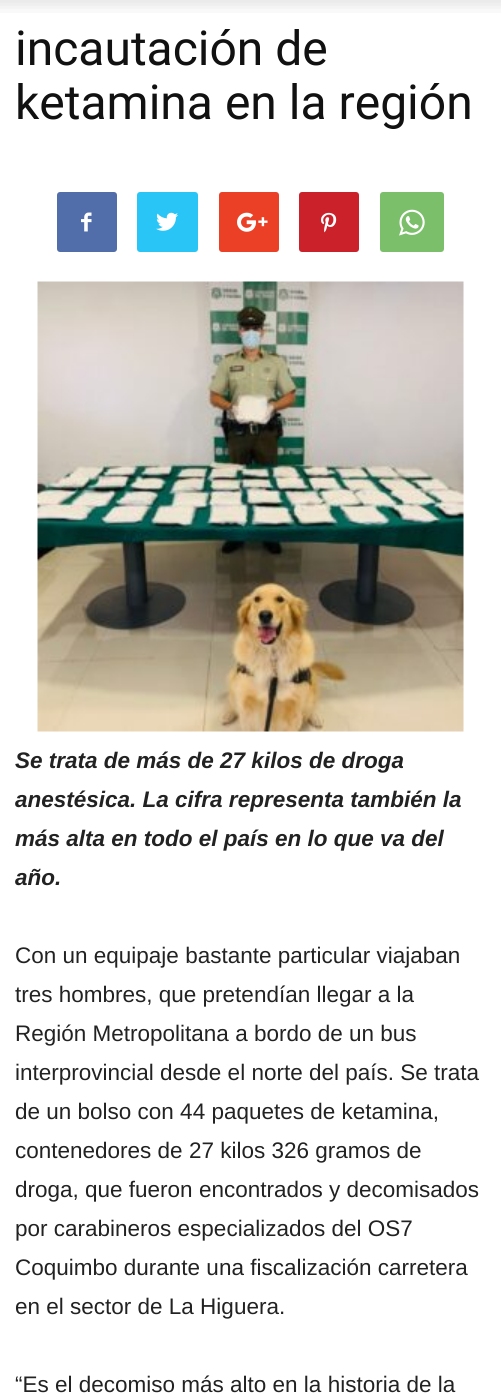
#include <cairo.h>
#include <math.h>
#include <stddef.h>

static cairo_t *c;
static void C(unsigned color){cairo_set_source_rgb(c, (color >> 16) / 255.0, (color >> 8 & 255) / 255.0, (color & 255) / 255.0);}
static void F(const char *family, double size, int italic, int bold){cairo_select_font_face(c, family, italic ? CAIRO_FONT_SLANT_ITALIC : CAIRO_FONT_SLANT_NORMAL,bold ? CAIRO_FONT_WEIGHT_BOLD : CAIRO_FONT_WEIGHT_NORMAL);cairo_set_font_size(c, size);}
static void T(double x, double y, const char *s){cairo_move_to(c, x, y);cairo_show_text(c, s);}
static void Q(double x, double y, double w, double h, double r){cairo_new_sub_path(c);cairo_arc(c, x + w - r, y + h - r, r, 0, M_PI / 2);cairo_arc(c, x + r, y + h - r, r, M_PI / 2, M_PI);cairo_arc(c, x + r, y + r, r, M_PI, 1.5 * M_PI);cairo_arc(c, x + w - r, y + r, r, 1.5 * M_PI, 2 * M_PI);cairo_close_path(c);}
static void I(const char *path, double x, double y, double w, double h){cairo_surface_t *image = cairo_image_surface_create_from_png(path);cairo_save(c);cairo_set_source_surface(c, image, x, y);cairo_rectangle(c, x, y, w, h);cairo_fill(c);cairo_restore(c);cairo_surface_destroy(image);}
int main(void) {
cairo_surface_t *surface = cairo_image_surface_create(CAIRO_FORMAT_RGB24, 501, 1393);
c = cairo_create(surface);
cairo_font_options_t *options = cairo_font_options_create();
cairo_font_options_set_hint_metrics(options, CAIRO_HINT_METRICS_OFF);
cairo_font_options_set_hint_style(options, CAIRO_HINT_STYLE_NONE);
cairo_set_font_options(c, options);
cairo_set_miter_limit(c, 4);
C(0xffffff);
cairo_paint(c);
I("1.png",0,0,501,13);
F("Roboto",48,0,0);
C(0x111111);
T(15,65,"incautación de");
T(15,119,"ketamina en la región");
C(0x516eab);
Q(57,192,60,60,3);
cairo_fill(c);
I("2.png",81,212,11,20);
C(0x29c5f6);
Q(137,192,61,60,3);
cairo_fill(c);
I("3.png",156,212,22,19);
C(0xeb4026);
Q(219,192,60,60,3);
cairo_fill(c);
I("4.png",237,212,31,20);
C(0xca212a);
Q(299,192,60,60,3);
cairo_fill(c);
I("5.png",321,212,16,21);
C(0x7bbf6a);
Q(380,192,64,60,3);
cairo_fill(c);
I("6.png",399,209,26,27);
I("7.png",37,281,427,451);
F("Liberation Sans",22.5,1,1);
C(0x222222);
T(15,768,"Se trata de más de 27 kilos de droga");
T(15,807,"anestésica. La cifra representa también la");
T(15,846,"más alta en todo el país en lo que va del");
T(15,885,"año.");
F("Liberation Sans",22.5,0,0);
T(15,963,"Con un equipaje bastante particular viajaban");
T(15,1002,"tres hombres, que pretendían llegar a la");
T(15,1041,"Región Metropolitana a bordo de un bus");
T(15,1080,"interprovincial desde el norte del país. Se trata");
T(15,1119,"de un bolso con 44 paquetes de ketamina,");
T(15,1158,"contenedores de 27 kilos 326 gramos de");
T(15,1197,"droga, que fueron encontrados y decomisados");
T(15,1236,"por carabineros especializados del OS7");
T(15,1275,"Coquimbo durante una fiscalización carretera");
T(15,1314,"en el sector de La Higuera.");
T(15,1392,"“Es el decomiso más alto en la historia de la");
cairo_surface_write_to_png(surface, "o.png");
cairo_font_options_destroy(options);
cairo_destroy(c);
cairo_surface_destroy(surface);
return 0;
}
